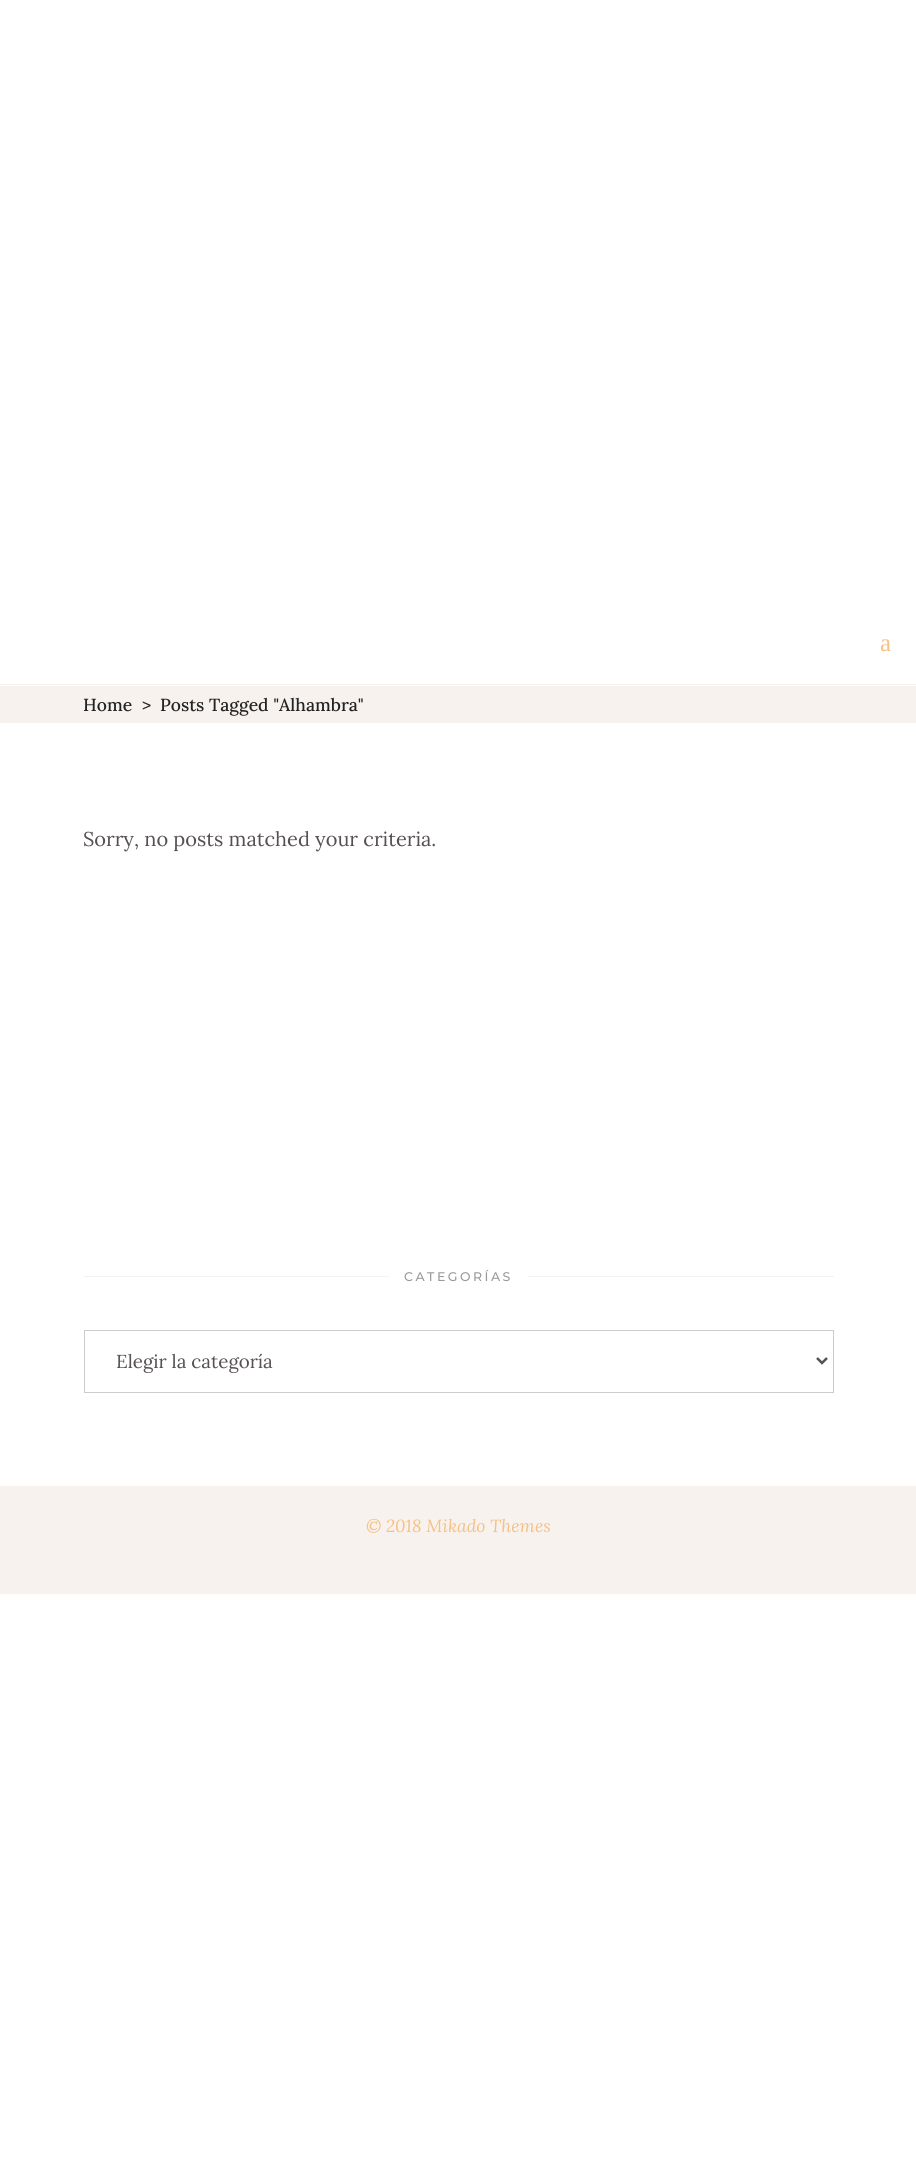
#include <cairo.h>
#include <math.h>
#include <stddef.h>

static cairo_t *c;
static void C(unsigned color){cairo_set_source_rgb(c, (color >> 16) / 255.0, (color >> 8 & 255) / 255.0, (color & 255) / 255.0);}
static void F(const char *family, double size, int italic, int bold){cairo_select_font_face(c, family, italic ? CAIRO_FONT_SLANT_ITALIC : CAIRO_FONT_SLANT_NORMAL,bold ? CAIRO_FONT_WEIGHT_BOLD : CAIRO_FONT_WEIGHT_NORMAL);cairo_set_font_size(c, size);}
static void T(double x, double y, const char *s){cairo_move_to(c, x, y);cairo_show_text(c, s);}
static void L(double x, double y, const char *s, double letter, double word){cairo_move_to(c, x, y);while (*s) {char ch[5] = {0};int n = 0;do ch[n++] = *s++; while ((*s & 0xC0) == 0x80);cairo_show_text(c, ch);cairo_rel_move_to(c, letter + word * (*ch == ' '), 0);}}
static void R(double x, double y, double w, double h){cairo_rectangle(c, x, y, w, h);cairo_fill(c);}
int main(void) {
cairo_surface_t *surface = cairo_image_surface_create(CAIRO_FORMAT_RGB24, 916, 2167);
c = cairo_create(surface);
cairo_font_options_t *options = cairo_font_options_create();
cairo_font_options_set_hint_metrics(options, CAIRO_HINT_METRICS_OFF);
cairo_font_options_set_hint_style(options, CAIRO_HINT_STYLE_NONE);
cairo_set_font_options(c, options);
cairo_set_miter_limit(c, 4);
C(0xffffff);
cairo_paint(c);
C(0xf2f2f2);
R(0,684,916,1);
F("Liberation Serif",25,0,0);
C(0xf5c186);
T(880,651,"a");
C(0xf7f2ee);
R(0,686,916,37);
F("Lora Medium",17.5,0,0);
C(0x232323);
T(83,711,"Home");
T(142,711,">");
T(160,711,"Posts Tagged \"Alhambra\"");
F("Lora",20,0,0);
C(0x565050);
T(83,846,"Sorry, no posts matched your criteria.");
C(0xf2f2f2);
R(84,1276,750,1);
C(0xffffff);
R(389,1276,139,1);
F("Montserrat Medium",12.5,0,0);
C(0x999999);
L(404,1281,"CATEGORÍAS",2.5,0);
cairo_rectangle(c,84.5,1330.5,749,62);
C(0xcccccc);
cairo_set_line_width(c,1);
cairo_stroke(c);
cairo_new_path(c);
cairo_move_to(c,817,1358);
cairo_line_to(c,822,1363);
cairo_line_to(c,827,1358);
C(0x565050);
cairo_set_line_width(c,2.5);
cairo_stroke(c);
F("Lora",18.75,0,0);
T(116,1368,"Elegir la categoría");
C(0xf7f2ee);
R(0,1486,916,108);
F("Lora",17.5,1,0);
C(0xf5c186);
T(366,1532,"© 2018 Mikado Themes");
cairo_surface_write_to_png(surface, "o.png");
cairo_font_options_destroy(options);
cairo_destroy(c);
cairo_surface_destroy(surface);
return 0;
}
